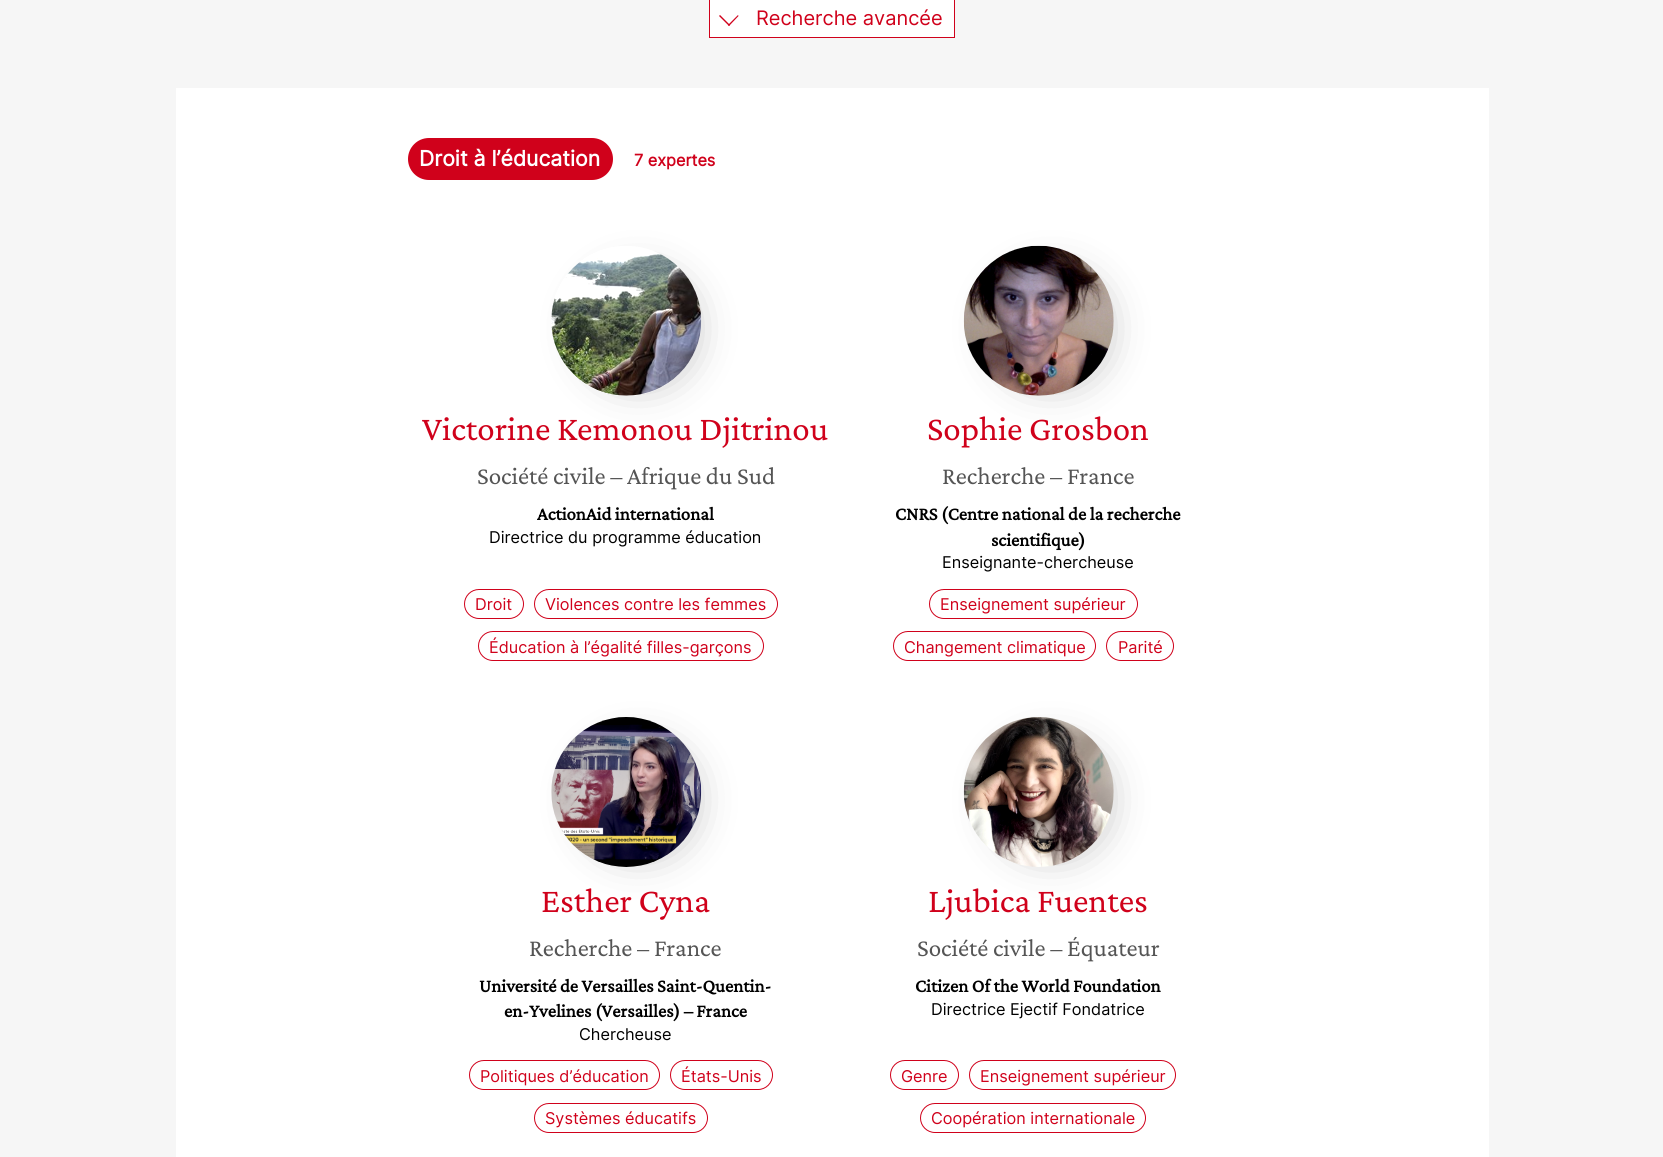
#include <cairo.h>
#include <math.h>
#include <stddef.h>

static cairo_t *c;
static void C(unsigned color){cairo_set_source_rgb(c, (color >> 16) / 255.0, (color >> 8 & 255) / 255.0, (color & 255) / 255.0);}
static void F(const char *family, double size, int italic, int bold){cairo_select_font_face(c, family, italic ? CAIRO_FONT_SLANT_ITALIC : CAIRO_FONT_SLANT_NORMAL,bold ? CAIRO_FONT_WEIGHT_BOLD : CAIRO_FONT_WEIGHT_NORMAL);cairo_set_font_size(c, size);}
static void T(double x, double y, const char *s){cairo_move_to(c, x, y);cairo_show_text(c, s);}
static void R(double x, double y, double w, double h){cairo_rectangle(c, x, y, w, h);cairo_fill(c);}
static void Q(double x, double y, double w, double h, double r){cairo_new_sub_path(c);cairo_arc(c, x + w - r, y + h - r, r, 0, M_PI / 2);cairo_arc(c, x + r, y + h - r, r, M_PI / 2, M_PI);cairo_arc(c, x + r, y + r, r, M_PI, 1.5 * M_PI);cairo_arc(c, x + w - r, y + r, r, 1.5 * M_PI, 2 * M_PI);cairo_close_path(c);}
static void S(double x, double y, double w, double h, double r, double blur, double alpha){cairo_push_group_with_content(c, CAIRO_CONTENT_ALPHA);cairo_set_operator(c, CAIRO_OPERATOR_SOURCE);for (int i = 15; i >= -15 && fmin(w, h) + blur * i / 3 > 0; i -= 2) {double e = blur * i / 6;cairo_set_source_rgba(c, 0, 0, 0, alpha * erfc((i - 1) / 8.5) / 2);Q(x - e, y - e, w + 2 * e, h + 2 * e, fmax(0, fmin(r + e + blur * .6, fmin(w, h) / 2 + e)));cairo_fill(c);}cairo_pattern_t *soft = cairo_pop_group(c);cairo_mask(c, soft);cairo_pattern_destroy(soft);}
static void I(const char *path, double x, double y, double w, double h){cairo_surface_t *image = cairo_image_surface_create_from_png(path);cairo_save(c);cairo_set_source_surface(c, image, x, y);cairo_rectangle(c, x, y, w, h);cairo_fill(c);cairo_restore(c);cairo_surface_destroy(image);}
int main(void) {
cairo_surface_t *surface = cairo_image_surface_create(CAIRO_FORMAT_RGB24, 1663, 1157);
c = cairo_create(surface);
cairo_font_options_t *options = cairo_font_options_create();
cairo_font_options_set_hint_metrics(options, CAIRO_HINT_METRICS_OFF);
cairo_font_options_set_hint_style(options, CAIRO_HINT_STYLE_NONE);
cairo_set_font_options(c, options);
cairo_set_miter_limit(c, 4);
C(0xf6f6f6);
cairo_paint(c);
C(0xffffff);
cairo_rectangle(c,709.5,-.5,245,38);
cairo_fill_preserve(c);
C(0xd0011b);
cairo_set_line_width(c,1);
cairo_stroke(c);
cairo_new_path(c);
cairo_move_to(c,738,15);
cairo_line_to(c,738.5,16);
cairo_line_to(c,729,26);
cairo_line_to(c,728,25);
cairo_close_path(c);
cairo_fill(c);
cairo_new_path(c);
cairo_move_to(c,720,15);
cairo_line_to(c,730,25);
cairo_line_to(c,729,26);
cairo_line_to(c,719,16);
cairo_close_path(c);
cairo_fill(c);
F("Inter",20,0,0);
T(756,25,"Recherche avancée");
C(0xffffff);
R(176,88,1313,1069);
C(0xd0011b);
Q(408,138,205,42,21);
cairo_fill(c);
F("Inter",21.25,0,1);
C(0xffffff);
T(419,166,"Droit à l’éducation");
F("Inter",16.25,0,1);
C(0xd0011b);
T(634,166,"7 expertes");
cairo_save(c);
cairo_set_fill_rule(c,CAIRO_FILL_RULE_EVEN_ODD);
cairo_new_path(c);
cairo_move_to(c,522,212);
cairo_line_to(c,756,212);
cairo_line_to(c,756,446);
cairo_line_to(c,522,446);
cairo_close_path(c);
cairo_move_to(c,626,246);
cairo_curve_to(c,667.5,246,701,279.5,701,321);
cairo_curve_to(c,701,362.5,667.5,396,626,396);
cairo_curve_to(c,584.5,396,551,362.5,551,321);
cairo_curve_to(c,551,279.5,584.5,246,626,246);
cairo_close_path(c);
cairo_clip(c);
C(0x000000);
S(583,273,112,112,56,20,.25);
cairo_restore(c);
I("1.png",551,254,151,142);
F("Crimson Pro",35,0,0);
T(422,440,"Victorine Kemonou Djitrinou");
F("Crimson Pro",25,0,0);
C(0x555555);
T(477,484,"Société civile – Afrique du Sud");
F("Crimson Pro",18.75,0,1);
C(0x000000);
T(537,520,"ActionAid international");
F("Inter",16.25,0,0);
T(489,543,"Directrice du programme éducation");
Q(464.5,589.5,59,29,14.5);
C(0xd0011b);
cairo_stroke(c);
T(475,610,"Droit");
Q(534.5,589.5,243,29,14.5);
cairo_stroke(c);
T(545,610,"Violences contre les femmes");
Q(478.5,631.5,285,29,14.5);
cairo_stroke(c);
T(489,653,"Éducation à l’égalité filles-garçons");
C(0x000000);
S(995,273,113,112,56,20,.25);
I("2.png",963,245,151,151);
F("Crimson Pro",35,0,0);
C(0xd0011b);
T(927,440,"Sophie Grosbon");
F("Crimson Pro",25,0,0);
C(0x555555);
T(942,484,"Recherche – France");
F("Crimson Pro",18.75,0,1);
C(0x000000);
T(895,520,"CNRS (Centre national de la recherche");
T(991,546,"scientifique)");
F("Inter",16.25,0,0);
T(942,568,"Enseignante-chercheuse");
Q(929.5,589.5,208,29,14.5);
C(0xd0011b);
cairo_stroke(c);
T(940,610,"Enseignement supérieur");
Q(893.5,631.5,202,29,14.5);
cairo_stroke(c);
T(904,653,"Changement climatique");
Q(1106.5,631.5,67,29,14.5);
cairo_stroke(c);
T(1118,653,"Parité");
C(0x000000);
S(583,744,112,112,56,20,.25);
I("3.png",551,717,151,150);
F("Crimson Pro",35,0,0);
C(0xd0011b);
T(541,912,"Esther Cyna");
F("Crimson Pro",25,0,0);
C(0x555555);
T(529,956,"Recherche – France");
F("Crimson Pro",18.75,0,1);
C(0x000000);
T(479,992,"Université de Versailles Saint-Quentin-");
T(504,1017,"en-Yvelines (Versailles) – France");
F("Inter",16.25,0,0);
T(579,1040,"Chercheuse");
Q(469.5,1060.5,190,29,14.5);
C(0xd0011b);
cairo_stroke(c);
T(480,1082,"Politiques d’éducation");
Q(670.5,1060.5,102,29,14.5);
cairo_stroke(c);
T(681,1082,"États-Unis");
Q(534.5,1103.5,173,29,14.5);
cairo_stroke(c);
T(545,1124,"Systèmes éducatifs");
C(0x000000);
S(995,744,113,112,56,20,.25);
I("4.png",963,717,151,150);
F("Crimson Pro",35,0,0);
C(0xd0011b);
T(928,912,"Ljubica Fuentes");
F("Crimson Pro",25,0,0);
C(0x555555);
T(917,956,"Société civile – Équateur");
F("Crimson Pro",18.75,0,1);
C(0x000000);
T(915,992,"Citizen Of the World Foundation");
F("Inter",16.25,0,0);
T(931,1015,"Directrice Ejectif Fondatrice");
Q(890.5,1060.5,68,29,14.5);
C(0xd0011b);
cairo_stroke(c);
T(901,1082,"Genre");
Q(969.5,1060.5,206,29,14.5);
cairo_stroke(c);
T(980,1082,"Enseignement supérieur");
Q(920.5,1103.5,225,29,14.5);
cairo_stroke(c);
T(931,1124,"Coopération internationale");
cairo_surface_write_to_png(surface, "o.png");
cairo_font_options_destroy(options);
cairo_destroy(c);
cairo_surface_destroy(surface);
return 0;
}
